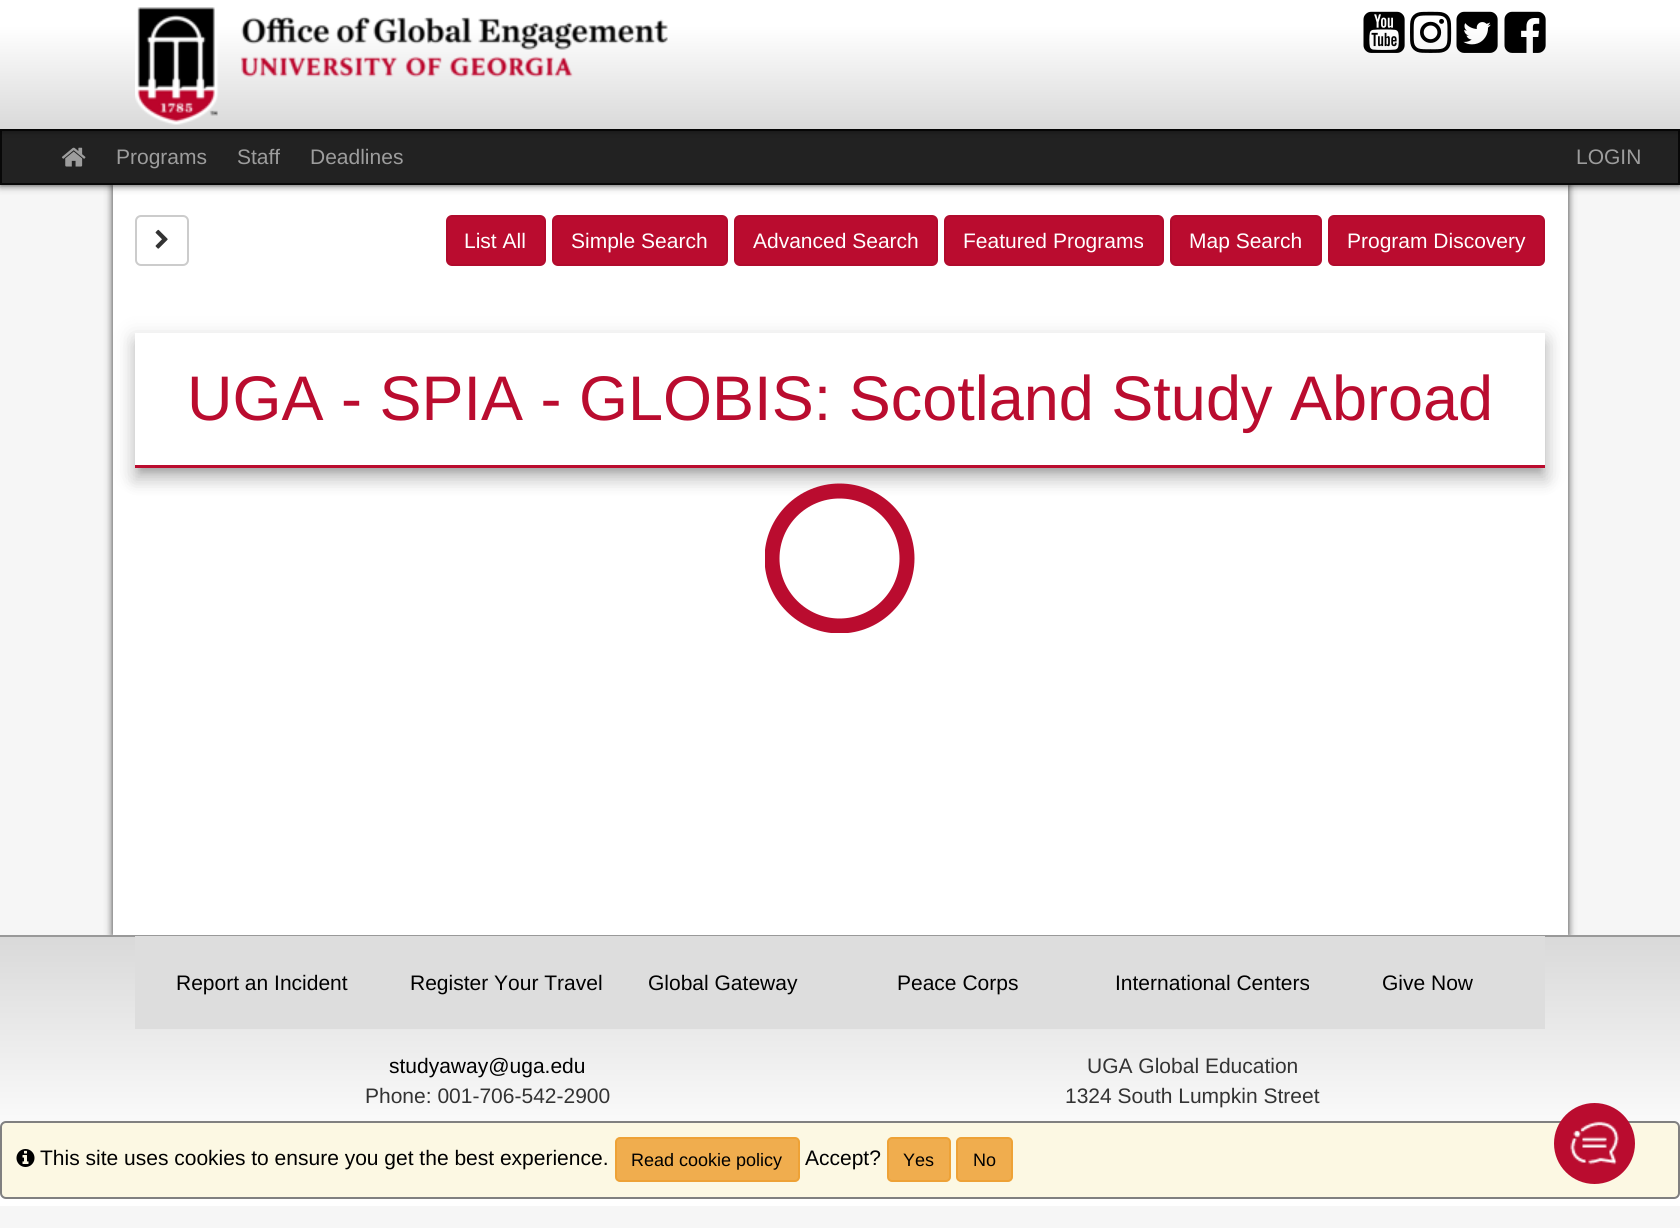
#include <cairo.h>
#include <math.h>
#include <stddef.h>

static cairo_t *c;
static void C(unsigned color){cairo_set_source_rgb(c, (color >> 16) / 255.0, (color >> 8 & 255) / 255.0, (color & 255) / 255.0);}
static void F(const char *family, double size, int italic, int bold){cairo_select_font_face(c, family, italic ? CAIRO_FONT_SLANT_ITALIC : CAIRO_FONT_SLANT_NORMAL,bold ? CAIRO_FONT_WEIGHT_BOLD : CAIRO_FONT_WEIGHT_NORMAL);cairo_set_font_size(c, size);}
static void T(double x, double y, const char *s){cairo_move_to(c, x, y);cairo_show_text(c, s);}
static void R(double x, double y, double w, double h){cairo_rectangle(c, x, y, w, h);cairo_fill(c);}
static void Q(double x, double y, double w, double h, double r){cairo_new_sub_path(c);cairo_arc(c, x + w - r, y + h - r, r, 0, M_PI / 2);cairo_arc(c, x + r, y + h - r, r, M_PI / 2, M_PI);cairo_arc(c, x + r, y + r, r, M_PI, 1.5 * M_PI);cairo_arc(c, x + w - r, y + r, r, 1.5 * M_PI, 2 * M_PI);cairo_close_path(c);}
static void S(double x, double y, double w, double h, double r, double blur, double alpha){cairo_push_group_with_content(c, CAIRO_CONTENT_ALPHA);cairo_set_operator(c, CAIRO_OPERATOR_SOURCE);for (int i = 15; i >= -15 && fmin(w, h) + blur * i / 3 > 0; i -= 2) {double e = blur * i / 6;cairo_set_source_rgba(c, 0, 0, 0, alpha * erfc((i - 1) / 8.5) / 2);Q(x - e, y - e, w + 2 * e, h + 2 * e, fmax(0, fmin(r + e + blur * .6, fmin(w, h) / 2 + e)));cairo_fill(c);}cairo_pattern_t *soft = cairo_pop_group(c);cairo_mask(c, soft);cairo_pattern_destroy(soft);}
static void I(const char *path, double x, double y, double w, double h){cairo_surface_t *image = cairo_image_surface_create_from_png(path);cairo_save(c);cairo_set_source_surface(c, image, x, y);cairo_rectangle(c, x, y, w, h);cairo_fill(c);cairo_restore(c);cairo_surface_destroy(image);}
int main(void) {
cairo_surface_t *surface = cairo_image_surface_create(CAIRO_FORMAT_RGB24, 1680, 1228);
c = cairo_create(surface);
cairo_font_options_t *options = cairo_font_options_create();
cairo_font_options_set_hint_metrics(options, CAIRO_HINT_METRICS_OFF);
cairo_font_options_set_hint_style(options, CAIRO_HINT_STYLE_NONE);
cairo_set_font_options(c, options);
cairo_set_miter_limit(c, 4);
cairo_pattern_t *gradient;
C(0xf6f6f6);
cairo_paint(c);
C(0x000000);
S(113,185,1455,750,0,4,.8);
C(0xffffff);
R(113,185,1455,750);
C(0x000000);
S(0,129,1680,56,0,4,.8);
C(0x222222);
cairo_rectangle(c,1,130,1678,54);
cairo_fill_preserve(c);
C(0x080808);
cairo_stroke(c);
C(0x000000);
S(0,0,1680,129,0,4,.8);
gradient = cairo_pattern_create_linear(840,0,840,129);
cairo_pattern_add_color_stop_rgba(gradient,.2,1,1,1,1);
cairo_pattern_add_color_stop_rgba(gradient,1,0.851,0.851,0.851,1);
cairo_set_source(c,gradient);
cairo_pattern_destroy(gradient);
R(0,0,1680,129);
I("1.png",135,7,533,118);
I("2.png",1363,11,42,42);
I("3.png",1410,11,42,42);
I("4.png",1456,11,42,42);
I("5.png",1504,11,42,42);
I("6.png",61,147,25,20);
F("Liberation Sans",21,0,0);
C(0x9d9d9d);
T(116,164,"Programs");
T(237,164,"Staff");
T(310,164,"Deadlines");
T(1576,164,"LOGIN");
Q(136,216,52,49,5);
C(0xcccccc);
cairo_stroke(c);
I("7.png",155,229,13,20);
C(0xba0c2f);
Q(447,216,98,49,5);
cairo_fill_preserve(c);
C(0xb10b2d);
cairo_stroke(c);
C(0xffffff);
T(464,248,"List All");
C(0xba0c2f);
Q(553,216,174,49,5);
cairo_fill_preserve(c);
C(0xb10b2d);
cairo_stroke(c);
C(0xffffff);
T(571,248,"Simple Search");
C(0xba0c2f);
Q(735,216,202,49,5);
cairo_fill_preserve(c);
C(0xb10b2d);
cairo_stroke(c);
C(0xffffff);
T(753,248,"Advanced Search");
C(0xba0c2f);
Q(945,216,218,49,5);
cairo_fill_preserve(c);
C(0xb10b2d);
cairo_stroke(c);
C(0xffffff);
T(963,248,"Featured Programs");
C(0xba0c2f);
Q(1171,216,150,49,5);
cairo_fill_preserve(c);
C(0xb10b2d);
cairo_stroke(c);
C(0xffffff);
T(1189,248,"Map Search");
C(0xba0c2f);
Q(1329,216,215,49,5);
cairo_fill_preserve(c);
C(0xb10b2d);
cairo_stroke(c);
C(0xffffff);
T(1347,248,"Program Discovery");
cairo_save(c);
cairo_set_fill_rule(c,CAIRO_FILL_RULE_EVEN_ODD);
cairo_new_path(c);
cairo_move_to(c,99,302);
cairo_line_to(c,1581,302);
cairo_line_to(c,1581,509);
cairo_line_to(c,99,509);
cairo_close_path(c);
cairo_move_to(c,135,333);
cairo_line_to(c,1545,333);
cairo_line_to(c,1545,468);
cairo_line_to(c,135,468);
cairo_close_path(c);
cairo_clip(c);
C(0x000000);
S(132,335,1416,141,0,10.5,.12);
cairo_restore(c);
cairo_save(c);
cairo_set_fill_rule(c,CAIRO_FILL_RULE_EVEN_ODD);
cairo_new_path(c);
cairo_move_to(c,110,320);
cairo_line_to(c,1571,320);
cairo_line_to(c,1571,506);
cairo_line_to(c,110,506);
cairo_close_path(c);
cairo_move_to(c,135,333);
cairo_line_to(c,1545,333);
cairo_line_to(c,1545,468);
cairo_line_to(c,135,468);
cairo_close_path(c);
cairo_clip(c);
C(0x000000);
S(134,344,1413,138,0,7.5,.14);
cairo_restore(c);
cairo_save(c);
cairo_set_fill_rule(c,CAIRO_FILL_RULE_EVEN_ODD);
cairo_new_path(c);
cairo_move_to(c,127,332);
cairo_line_to(c,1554,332);
cairo_line_to(c,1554,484);
cairo_line_to(c,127,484);
cairo_close_path(c);
cairo_move_to(c,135,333);
cairo_line_to(c,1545,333);
cairo_line_to(c,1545,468);
cairo_line_to(c,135,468);
cairo_close_path(c);
cairo_clip(c);
C(0x000000);
S(140,345,1401,126,0,4,.2);
cairo_restore(c);
C(0xba0c2f);
R(135,465,1410,3);
F("Liberation Sans",63,0,0);
T(187,420,"UGA - SPIA - GLOBIS: Scotland Study Abroad");
cairo_save(c);
cairo_rectangle(c,765,483,150,150);
cairo_clip(c);
cairo_new_path(c);
cairo_move_to(c,772,558.5);
cairo_curve_to(c,772,521,802.5,491,839.5,491);
cairo_curve_to(c,877,491,907,521,907,558.5);
cairo_curve_to(c,907,595.5,877,626,839.5,626);
cairo_curve_to(c,802.5,626,772,595.5,772,558.5);
cairo_set_line_width(c,15);
cairo_stroke(c);
cairo_restore(c);
gradient = cairo_pattern_create_linear(840,1206,840,936);
cairo_pattern_add_color_stop_rgba(gradient,.2,1,1,1,1);
cairo_pattern_add_color_stop_rgba(gradient,1,0.851,0.851,0.851,1);
cairo_set_source(c,gradient);
cairo_pattern_destroy(gradient);
R(0,937,1680,269);
C(0x999999);
R(0,935,1680,2);
C(0xdddddd);
R(135,936,1410,93);
F("Liberation Sans",21,0,0);
C(0x000000);
T(176,990,"Report an Incident");
T(410,990,"Register Your Travel");
T(648,990,"Global Gateway");
T(897,990,"Peace Corps");
T(1115,990,"International Centers");
T(1382,990,"Give Now");
T(389,1073,"studyaway@uga.edu");
C(0x333333);
T(365,1103,"Phone: 001-706-542-2900");
T(1087,1073,"UGA Global Education");
T(1065,1103,"1324 South Lumpkin Street");
C(0xfcf8e3);
Q(1,1122,1678,76,5);
cairo_fill_preserve(c);
C(0x808080);
cairo_stroke(c);
I("8.png",16,1149,19,18);
C(0x000000);
T(40,1165,"This site uses cookies to ensure you get the best experience.");
C(0xf0ad4e);
Q(616,1138,183,43,4);
cairo_fill_preserve(c);
C(0xeea236);
cairo_stroke(c);
F("Liberation Sans",18,0,0);
C(0x000000);
T(631,1166,"Read cookie policy");
F("Liberation Sans",21,0,0);
T(805,1165,"Accept?");
C(0xf0ad4e);
Q(888,1138,62,43,4);
cairo_fill_preserve(c);
C(0xeea236);
cairo_stroke(c);
F("Liberation Sans",18,0,0);
C(0x000000);
T(903,1166,"Yes");
C(0xf0ad4e);
Q(957,1138,55,43,4);
cairo_fill_preserve(c);
C(0xeea236);
cairo_stroke(c);
C(0x000000);
T(973,1166,"No");
C(0xba0c2f);
cairo_new_path(c);
cairo_arc(c,1594.5,1143.5,40.5,0,2 * M_PI);
cairo_fill(c);
I("9.png",1570,1121,49,44);
cairo_surface_write_to_png(surface, "o.png");
cairo_font_options_destroy(options);
cairo_destroy(c);
cairo_surface_destroy(surface);
return 0;
}
